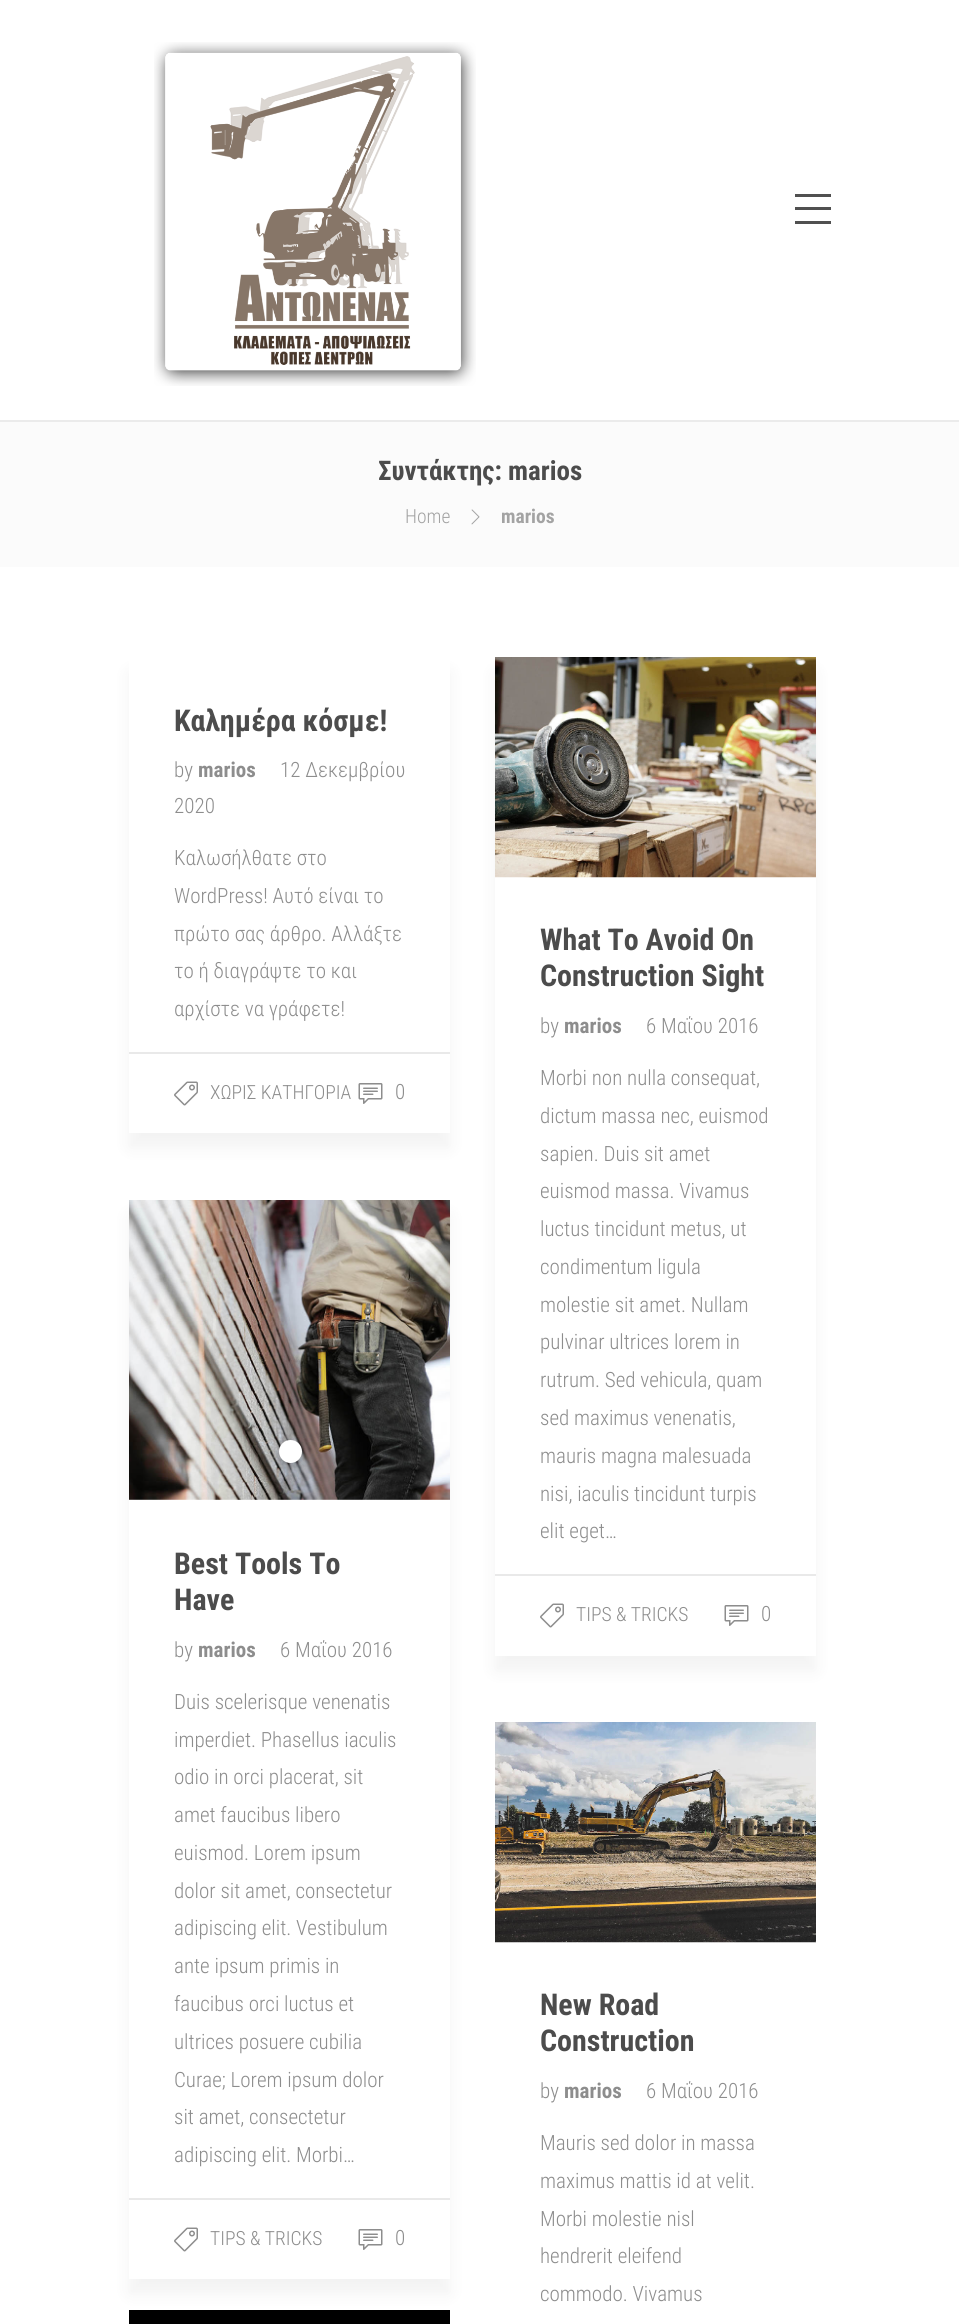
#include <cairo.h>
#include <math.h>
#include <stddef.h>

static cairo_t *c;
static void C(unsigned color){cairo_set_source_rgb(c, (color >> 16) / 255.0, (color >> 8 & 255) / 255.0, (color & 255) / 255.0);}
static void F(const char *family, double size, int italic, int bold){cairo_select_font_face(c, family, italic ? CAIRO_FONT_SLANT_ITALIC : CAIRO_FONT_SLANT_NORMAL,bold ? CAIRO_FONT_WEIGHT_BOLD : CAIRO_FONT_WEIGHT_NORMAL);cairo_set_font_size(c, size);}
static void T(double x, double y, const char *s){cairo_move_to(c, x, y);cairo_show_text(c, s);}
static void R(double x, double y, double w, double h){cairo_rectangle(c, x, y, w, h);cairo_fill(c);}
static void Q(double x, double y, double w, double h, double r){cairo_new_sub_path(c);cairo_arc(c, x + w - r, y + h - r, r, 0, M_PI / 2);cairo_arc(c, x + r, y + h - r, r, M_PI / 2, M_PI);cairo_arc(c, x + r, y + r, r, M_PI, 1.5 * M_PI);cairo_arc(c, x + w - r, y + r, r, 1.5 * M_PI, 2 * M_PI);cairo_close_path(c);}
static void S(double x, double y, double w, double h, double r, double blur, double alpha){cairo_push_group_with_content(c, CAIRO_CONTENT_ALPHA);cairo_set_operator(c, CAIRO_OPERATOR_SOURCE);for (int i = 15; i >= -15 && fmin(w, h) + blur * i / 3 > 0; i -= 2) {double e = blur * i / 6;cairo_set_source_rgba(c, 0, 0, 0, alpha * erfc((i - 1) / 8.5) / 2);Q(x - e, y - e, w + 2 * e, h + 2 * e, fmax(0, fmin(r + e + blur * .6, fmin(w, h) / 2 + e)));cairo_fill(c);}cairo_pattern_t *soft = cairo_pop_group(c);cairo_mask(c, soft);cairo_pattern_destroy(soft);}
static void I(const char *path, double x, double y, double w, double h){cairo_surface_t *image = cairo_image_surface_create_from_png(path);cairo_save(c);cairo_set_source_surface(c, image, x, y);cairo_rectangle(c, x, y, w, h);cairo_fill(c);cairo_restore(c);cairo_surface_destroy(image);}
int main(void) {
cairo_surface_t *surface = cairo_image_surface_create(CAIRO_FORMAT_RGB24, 959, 2324);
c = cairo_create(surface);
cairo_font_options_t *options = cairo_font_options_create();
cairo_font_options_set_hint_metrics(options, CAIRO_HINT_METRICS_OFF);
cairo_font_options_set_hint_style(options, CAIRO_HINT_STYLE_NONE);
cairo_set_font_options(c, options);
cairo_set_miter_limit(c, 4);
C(0xffffff);
cairo_paint(c);
C(0xebebeb);
R(0,420,959,2);
I("1.png",154,42,322,344);
C(0x505050);
R(795,207,36,3);
R(795,194,36,3);
R(795,221,36,3);
C(0xfbfbfb);
R(0,422,959,145);
F("Roboto Condensed",27,0,1);
C(0x4c4c4c);
T(378,480,"Συντάκτης: marios");
F("Roboto Condensed Light",19.5,0,0);
C(0xa3a3a3);
T(405,523,"Home");
I("2.png",471,509,9,16);
F("Roboto Condensed",19.5,0,1);
T(501,523,"marios");
cairo_save(c);
cairo_set_fill_rule(c,CAIRO_FILL_RULE_EVEN_ODD);
cairo_new_path(c);
cairo_move_to(c,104,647);
cairo_line_to(c,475,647);
cairo_line_to(c,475,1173);
cairo_line_to(c,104,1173);
cairo_close_path(c);
cairo_move_to(c,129,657);
cairo_line_to(c,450,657);
cairo_line_to(c,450,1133);
cairo_line_to(c,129,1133);
cairo_close_path(c);
cairo_clip(c);
C(0x000000);
S(129,672,321,476,0,8,.05);
cairo_restore(c);
F("Roboto Condensed",30,0,1);
C(0x4c4c4c);
T(174,731,"Καλημέρα κόσμε!");
F("Roboto Condensed Light",21,0,0);
C(0x8d8d8d);
T(174,777,"by");
F("Roboto Condensed",21,0,1);
T(198,777,"marios");
F("Roboto Condensed Light",21,0,0);
T(280,777,"12 Δεκεμβρίου");
T(174,813,"2020");
T(174,865,"Καλωσήλθατε στο");
T(174,903,"WordPress! Αυτό είναι το");
T(174,941,"πρώτο σας άρθρο. Αλλάξτε");
T(174,978,"το ή διαγράψτε το και");
T(174,1016,"αρχίστε να γράφετε!");
C(0xe9e9e9);
R(129,1052,321,2);
I("3.png",174,1081,24,25);
F("Roboto Condensed Light",19.5,0,0);
C(0x8d8d8d);
T(210,1099,"ΧΩΡΙΣ ΚΑΤΗΓΟΡΙΑ");
I("4.png",358,1083,25,21);
F("Roboto Condensed Light",21,0,0);
T(395,1099,"0");
cairo_save(c);
cairo_set_fill_rule(c,CAIRO_FILL_RULE_EVEN_ODD);
cairo_new_path(c);
cairo_move_to(c,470,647);
cairo_line_to(c,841,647);
cairo_line_to(c,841,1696);
cairo_line_to(c,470,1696);
cairo_close_path(c);
cairo_move_to(c,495,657);
cairo_line_to(c,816,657);
cairo_line_to(c,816,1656);
cairo_line_to(c,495,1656);
cairo_close_path(c);
cairo_clip(c);
C(0x000000);
S(495,672,321,999,0,8,.05);
cairo_restore(c);
I("5.png",495,657,321,221);
F("Roboto Condensed",30,0,1);
C(0x4c4c4c);
T(540,950,"What To Avoid On");
T(540,986,"Construction Sight");
F("Roboto Condensed Light",21,0,0);
C(0x8d8d8d);
T(540,1033,"by");
F("Roboto Condensed",21,0,1);
T(564,1033,"marios");
F("Roboto Condensed Light",21,0,0);
T(646,1033,"6 Μαΐου 2016");
T(540,1085,"Morbi non nulla consequat,");
T(540,1123,"dictum massa nec, euismod");
T(540,1161,"sapien. Duis sit amet");
T(540,1198,"euismod massa. Vivamus");
T(540,1236,"luctus tincidunt metus, ut");
T(540,1274,"condimentum ligula");
T(540,1312,"molestie sit amet. Nullam");
T(540,1349,"pulvinar ultrices lorem in");
T(540,1387,"rutrum. Sed vehicula, quam");
T(540,1425,"sed maximus venenatis,");
T(540,1463,"mauris magna malesuada");
T(540,1501,"nisi, iaculis tincidunt turpis");
T(540,1538,"elit eget…");
C(0xe9e9e9);
R(495,1574,321,2);
I("3.png",540,1603,24,25);
F("Roboto Condensed Light",19.5,0,0);
C(0x8d8d8d);
T(576,1621,"TIPS & TRICKS");
I("4.png",724,1605,25,21);
F("Roboto Condensed Light",21,0,0);
T(761,1621,"0");
cairo_save(c);
cairo_set_fill_rule(c,CAIRO_FILL_RULE_EVEN_ODD);
cairo_new_path(c);
cairo_move_to(c,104,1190);
cairo_line_to(c,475,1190);
cairo_line_to(c,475,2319);
cairo_line_to(c,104,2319);
cairo_close_path(c);
cairo_move_to(c,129,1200);
cairo_line_to(c,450,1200);
cairo_line_to(c,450,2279);
cairo_line_to(c,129,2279);
cairo_close_path(c);
cairo_clip(c);
C(0x000000);
S(129,1215,321,1079,0,8,.05);
cairo_restore(c);
I("6.png",129,1200,321,300);
C(0x000000);
S(278,1442,25,25,12.5,4,.2);
C(0xffffff);
cairo_arc(c,290.5,1451.5,11.5,0,2 * M_PI);
cairo_fill(c);
F("Roboto Condensed",30,0,1);
C(0x4c4c4c);
T(174,1574,"Best Tools To");
T(174,1610,"Have");
F("Roboto Condensed Light",21,0,0);
C(0x8d8d8d);
T(174,1657,"by");
F("Roboto Condensed",21,0,1);
T(198,1657,"marios");
F("Roboto Condensed Light",21,0,0);
T(280,1657,"6 Μαΐου 2016");
T(174,1709,"Duis scelerisque venenatis");
T(174,1747,"imperdiet. Phasellus iaculis");
T(174,1784,"odio in orci placerat, sit");
T(174,1822,"amet faucibus libero");
T(174,1860,"euismod. Lorem ipsum");
T(174,1898,"dolor sit amet, consectetur");
T(174,1935,"adipiscing elit. Vestibulum");
T(174,1973,"ante ipsum primis in");
T(174,2011,"faucibus orci luctus et");
T(174,2049,"ultrices posuere cubilia");
T(174,2087,"Curae; Lorem ipsum dolor");
T(174,2124,"sit amet, consectetur");
T(174,2162,"adipiscing elit. Morbi…");
C(0xe9e9e9);
R(129,2198,321,2);
I("3.png",174,2227,24,25);
F("Roboto Condensed Light",19.5,0,0);
C(0x8d8d8d);
T(210,2245,"TIPS & TRICKS");
I("4.png",358,2229,25,21);
F("Roboto Condensed Light",21,0,0);
T(395,2245,"0");
I("7.png",495,1722,321,221);
F("Roboto Condensed",30,0,1);
C(0x4c4c4c);
T(540,2015,"New Road");
T(540,2051,"Construction");
F("Roboto Condensed Light",21,0,0);
C(0x8d8d8d);
T(540,2098,"by");
F("Roboto Condensed",21,0,1);
T(564,2098,"marios");
F("Roboto Condensed Light",21,0,0);
T(646,2098,"6 Μαΐου 2016");
T(540,2150,"Mauris sed dolor in massa");
T(540,2188,"maximus mattis id at velit.");
T(540,2226,"Morbi molestie nisl");
T(540,2263,"hendrerit eleifend");
T(540,2301,"commodo. Vivamus");
C(0x000000);
R(129,2310,321,14);
cairo_surface_write_to_png(surface, "o.png");
cairo_font_options_destroy(options);
cairo_destroy(c);
cairo_surface_destroy(surface);
return 0;
}
